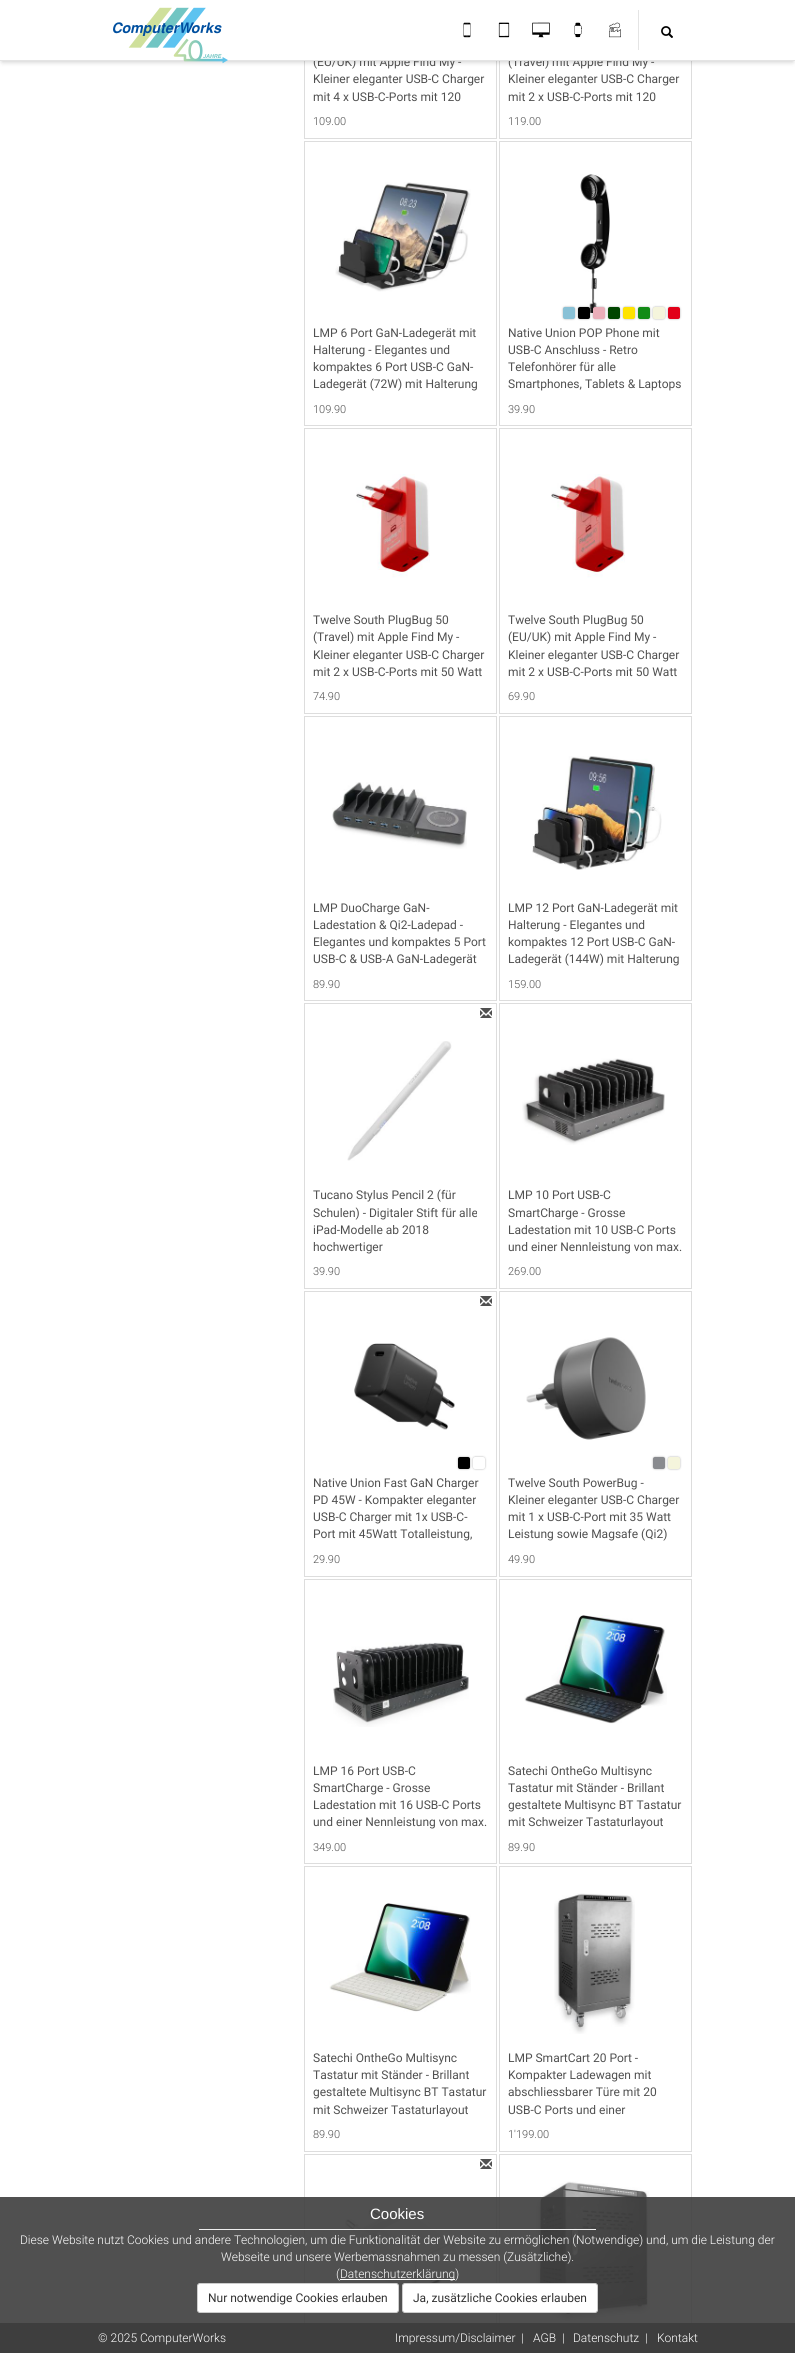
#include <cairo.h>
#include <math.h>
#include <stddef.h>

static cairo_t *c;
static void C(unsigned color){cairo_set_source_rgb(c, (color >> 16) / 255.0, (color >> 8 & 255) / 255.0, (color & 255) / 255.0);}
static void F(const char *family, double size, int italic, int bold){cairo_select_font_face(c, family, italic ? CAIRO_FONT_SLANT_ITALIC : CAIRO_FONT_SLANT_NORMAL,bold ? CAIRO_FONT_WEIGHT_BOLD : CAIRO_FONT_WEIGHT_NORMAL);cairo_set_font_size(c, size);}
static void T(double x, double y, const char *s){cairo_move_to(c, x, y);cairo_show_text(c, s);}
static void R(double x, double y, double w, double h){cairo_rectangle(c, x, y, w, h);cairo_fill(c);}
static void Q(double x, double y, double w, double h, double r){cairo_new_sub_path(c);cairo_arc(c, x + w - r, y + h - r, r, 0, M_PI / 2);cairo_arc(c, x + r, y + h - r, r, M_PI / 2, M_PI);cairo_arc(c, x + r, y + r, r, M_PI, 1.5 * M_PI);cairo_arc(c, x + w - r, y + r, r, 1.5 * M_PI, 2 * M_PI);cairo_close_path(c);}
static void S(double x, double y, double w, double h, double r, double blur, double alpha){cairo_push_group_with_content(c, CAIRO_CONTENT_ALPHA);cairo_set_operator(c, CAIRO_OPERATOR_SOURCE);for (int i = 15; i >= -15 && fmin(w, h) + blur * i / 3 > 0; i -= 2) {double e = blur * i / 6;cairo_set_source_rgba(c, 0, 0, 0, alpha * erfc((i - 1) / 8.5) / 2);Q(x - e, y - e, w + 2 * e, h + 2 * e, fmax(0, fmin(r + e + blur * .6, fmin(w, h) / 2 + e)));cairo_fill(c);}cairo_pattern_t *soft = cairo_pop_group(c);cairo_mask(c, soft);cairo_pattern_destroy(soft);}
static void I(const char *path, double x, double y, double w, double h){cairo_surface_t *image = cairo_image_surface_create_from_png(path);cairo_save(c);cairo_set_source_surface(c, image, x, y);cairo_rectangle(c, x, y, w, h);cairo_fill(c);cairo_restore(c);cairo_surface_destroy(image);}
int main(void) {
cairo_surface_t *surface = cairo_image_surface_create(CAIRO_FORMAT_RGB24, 795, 2353);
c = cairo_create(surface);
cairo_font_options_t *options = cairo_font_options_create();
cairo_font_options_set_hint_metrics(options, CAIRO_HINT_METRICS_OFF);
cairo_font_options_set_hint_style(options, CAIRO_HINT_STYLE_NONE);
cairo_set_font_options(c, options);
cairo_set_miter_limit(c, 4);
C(0xffffff);
cairo_paint(c);
cairo_rectangle(c,304.5,-.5,192,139);
C(0xdddddd);
cairo_set_line_width(c,1);
cairo_stroke(c);
cairo_rectangle(c,499.5,-.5,192,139);
cairo_stroke(c);
C(0x000000);
S(2,5,791,57,0,2.5,.2);
F("Roboto",12,0,0);
C(0x505050);
T(313,66,"(EU/UK) mit Apple Find My -");
T(508,66,"(Travel) mit Apple Find My -");
C(0xffffff);
R(0,0,795,60);
C(0xe4e4e4);
R(0,60,795,1);
I("1.png",113,7,115,57);
I("2.png",463,22,8,16);
I("3.png",498,22,12,16);
I("4.png",532,22,18,16);
I("5.png",574,22,8,16);
I("6.png",609,22,12,16);
R(638,10,1,40);
I("7.png",661,26,12,12);
C(0x505050);
T(313,83,"Kleiner eleganter USB-C Charger");
T(313,101,"mit 4 x USB-C-Ports mit 120");
F("Roboto Light",11,0,0);
T(313,125,"109.00");
F("Roboto",12,0,0);
T(508,83,"Kleiner eleganter USB-C Charger");
T(508,101,"mit 2 x USB-C-Ports mit 120");
F("Roboto Light",11,0,0);
T(508,125,"119.00");
cairo_rectangle(c,304.5,141.5,192,284);
C(0xdddddd);
cairo_stroke(c);
I("8.png",335,182,136,110);
F("Roboto",12,0,0);
C(0x505050);
T(313,337,"LMP 6 Port GaN-Ladegerät mit");
T(313,354,"Halterung - Elegantes und");
T(313,371,"kompaktes 6 Port USB-C GaN-");
T(313,388,"Ladegerät (72W) mit Halterung");
F("Roboto Light",11,0,0);
T(313,413,"109.90");
cairo_rectangle(c,499.5,141.5,192,284);
C(0xdddddd);
cairo_stroke(c);
I("9.png",580,174,30,139);
C(0x000000);
S(563,307,12,12,2,1,.3);
C(0x89c1d6);
Q(563,307,12,12,2);
cairo_fill(c);
C(0x000000);
S(578,307,12,12,2,1,.3);
C(0x000000);
Q(578,307,12,12,2);
cairo_fill(c);
C(0x000000);
S(593,307,12,12,2,1,.3);
C(0xeaaeb9);
Q(593,307,12,12,2);
cairo_fill(c);
C(0x000000);
S(608,307,12,12,2,1,.3);
C(0x004600);
Q(608,307,12,12,2);
cairo_fill(c);
C(0x000000);
S(623,307,12,12,2,1,.3);
C(0xffe300);
Q(623,307,12,12,2);
cairo_fill(c);
C(0x000000);
S(638,307,12,12,2,1,.3);
C(0x128b16);
Q(638,307,12,12,2);
cairo_fill(c);
C(0x000000);
S(653,307,12,12,2,1,.3);
C(0xf5f5dc);
Q(653,307,12,12,2);
cairo_fill(c);
C(0x000000);
S(668,307,12,12,2,1,.3);
C(0xe20019);
Q(668,307,12,12,2);
cairo_fill(c);
F("Roboto",12,0,0);
C(0x505050);
T(508,337,"Native Union POP Phone mit");
T(508,354,"USB-C Anschluss - Retro");
T(508,371,"Telefonhörer für alle");
T(508,388,"Smartphones, Tablets & Laptops");
F("Roboto Light",11,0,0);
T(508,413,"39.90");
cairo_rectangle(c,304.5,428.5,192,285);
C(0xdddddd);
cairo_stroke(c);
I("10.png",356,474,74,104);
F("Roboto",12,0,0);
C(0x505050);
T(313,624,"Twelve South PlugBug 50");
T(313,641,"(Travel) mit Apple Find My -");
T(313,659,"Kleiner eleganter USB-C Charger");
T(313,676,"mit 2 x USB-C-Ports mit 50 Watt");
F("Roboto Light",11,0,0);
T(313,700,"74.90");
cairo_rectangle(c,499.5,428.5,192,285);
C(0xdddddd);
cairo_stroke(c);
I("11.png",551,474,74,104);
F("Roboto",12,0,0);
C(0x505050);
T(508,624,"Twelve South PlugBug 50");
T(508,641,"(EU/UK) mit Apple Find My -");
T(508,659,"Kleiner eleganter USB-C Charger");
T(508,676,"mit 2 x USB-C-Ports mit 50 Watt");
F("Roboto Light",11,0,0);
T(508,700,"69.90");
cairo_rectangle(c,304.5,716.5,192,284);
C(0xdddddd);
cairo_stroke(c);
I("12.png",332,782,135,67);
F("Roboto",12,0,0);
C(0x505050);
T(313,912,"LMP DuoCharge GaN-");
T(313,929,"Ladestation & Qi2-Ladepad -");
T(313,946,"Elegantes und kompaktes 5 Port");
T(313,963,"USB-C & USB-A GaN-Ladegerät");
F("Roboto Light",11,0,0);
T(313,988,"89.90");
cairo_rectangle(c,499.5,716.5,192,284);
C(0xdddddd);
cairo_stroke(c);
I("13.png",532,756,130,114);
F("Roboto",12,0,0);
C(0x505050);
T(508,912,"LMP 12 Port GaN-Ladegerät mit");
T(508,929,"Halterung - Elegantes und");
T(508,946,"kompaktes 12 Port USB-C GaN-");
T(508,963,"Ladegerät (144W) mit Halterung");
F("Roboto Light",11,0,0);
T(508,988,"159.00");
cairo_rectangle(c,304.5,1003.5,192,285);
C(0xdddddd);
cairo_stroke(c);
I("14.png",480,1008,12,10);
I("15.png",347,1041,105,120);
F("Roboto",12,0,0);
C(0x505050);
T(313,1199,"Tucano Stylus Pencil 2 (für");
T(313,1217,"Schulen) - Digitaler Stift für alle");
T(313,1234,"iPad-Modelle ab 2018");
T(313,1251,"hochwertiger");
F("Roboto Light",11,0,0);
T(313,1275,"39.90");
cairo_rectangle(c,499.5,1003.5,192,285);
C(0xdddddd);
cairo_stroke(c);
I("16.png",522,1058,143,87);
F("Roboto",12,0,0);
C(0x505050);
T(508,1199,"LMP 10 Port USB-C");
T(508,1217,"SmartCharge - Grosse");
T(508,1234,"Ladestation mit 10 USB-C Ports");
T(508,1251,"und einer Nennleistung von max.");
F("Roboto Light",11,0,0);
T(508,1275,"269.00");
cairo_rectangle(c,304.5,1291.5,192,285);
C(0xdddddd);
cairo_stroke(c);
I("14.png",480,1296,12,10);
I("17.png",354,1343,101,87);
C(0x000000);
S(458,1457,12,12,2,1,.3);
C(0x000000);
Q(458,1457,12,12,2);
cairo_fill(c);
C(0x000000);
S(473,1457,12,12,2,1,.3);
C(0xffffff);
Q(473,1457,12,12,2);
cairo_fill(c);
F("Roboto",12,0,0);
C(0x505050);
T(313,1487,"Native Union Fast GaN Charger");
T(313,1504,"PD 45W - Kompakter eleganter");
T(313,1521,"USB-C Charger mit 1x USB-C-");
T(313,1538,"Port mit 45Watt Totalleistung,");
F("Roboto Light",11,0,0);
T(313,1563,"29.90");
cairo_rectangle(c,499.5,1291.5,192,285);
C(0xdddddd);
cairo_stroke(c);
I("18.png",526,1337,120,103);
C(0x000000);
S(653,1457,12,12,2,1,.3);
C(0x898b8f);
Q(653,1457,12,12,2);
cairo_fill(c);
C(0x000000);
S(668,1457,12,12,2,1,.3);
C(0xf5f5dc);
Q(668,1457,12,12,2);
cairo_fill(c);
F("Roboto",12,0,0);
C(0x505050);
T(508,1487,"Twelve South PowerBug -");
T(508,1504,"Kleiner eleganter USB-C Charger");
T(508,1521,"mit 1 x USB-C-Port mit 35 Watt");
T(508,1538,"Leistung sowie Magsafe (Qi2)");
F("Roboto Light",11,0,0);
T(508,1563,"49.90");
cairo_rectangle(c,304.5,1579.5,192,284);
C(0xdddddd);
cairo_stroke(c);
I("19.png",333,1642,136,85);
F("Roboto",12,0,0);
C(0x505050);
T(313,1775,"LMP 16 Port USB-C");
T(313,1792,"SmartCharge - Grosse");
T(313,1809,"Ladestation mit 16 USB-C Ports");
T(313,1826,"und einer Nennleistung von max.");
F("Roboto Light",11,0,0);
T(313,1851,"349.00");
cairo_rectangle(c,499.5,1579.5,192,284);
C(0xdddddd);
cairo_stroke(c);
I("20.png",524,1615,143,109);
F("Roboto",12,0,0);
C(0x505050);
T(508,1775,"Satechi OntheGo Multisync");
T(508,1792,"Tastatur mit Ständer - Brillant");
T(508,1809,"gestaltete Multisync BT Tastatur");
T(508,1826,"mit Schweizer Tastaturlayout");
F("Roboto Light",11,0,0);
T(508,1851,"89.90");
cairo_rectangle(c,304.5,1866.5,192,285);
C(0xdddddd);
cairo_stroke(c);
I("21.png",329,1903,142,109);
F("Roboto",12,0,0);
C(0x505050);
T(313,2062,"Satechi OntheGo Multisync");
T(313,2079,"Tastatur mit Ständer - Brillant");
T(313,2096,"gestaltete Multisync BT Tastatur");
T(313,2114,"mit Schweizer Tastaturlayout");
F("Roboto Light",11,0,0);
T(313,2138,"89.90");
cairo_rectangle(c,499.5,1866.5,192,285);
C(0xdddddd);
cairo_stroke(c);
I("22.png",554,1893,81,141);
F("Roboto",12,0,0);
C(0x505050);
T(508,2062,"LMP SmartCart 20 Port -");
T(508,2079,"Kompakter Ladewagen mit");
T(508,2096,"abschliessbarer Türe mit 20");
T(508,2114,"USB-C Ports und einer");
F("Roboto Light",11,0,0);
T(508,2138,"1'199.00");
cairo_rectangle(c,304.5,2154.5,192,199);
C(0xdddddd);
cairo_stroke(c);
I("14.png",480,2159,12,10);
I("23.png",344,2208,113,94);
cairo_rectangle(c,499.5,2154.5,192,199);
cairo_stroke(c);
I("24.png",535,2181,115,140);
cairo_set_source_rgba(c,0.243,0.243,0.243,0.9);
R(0,2197,795,126);
C(0xeeeeee);
R(199,2229,397,1);
F("Liberation Sans",15,0,0);
C(0xffffff);
T(370,2219,"Cookies");
F("Roboto Light",12,0,0);
T(20,2244,"Diese Website nutzt Cookies und andere Technologien, um die Funktionalität der Website zu ermöglichen (Notwendige) und, um die Leistung der");
T(221,2261,"Webseite und unsere Werbemassnahmen zu messen (Zusätzliche).");
T(336,2278,"(");
R(340,2279,115,1);
T(340,2278,"Datenschutzerklärung)");
Q(197.5,2283.5,201,29,2.5);
cairo_fill_preserve(c);
C(0xcccccc);
cairo_stroke(c);
F("Roboto",12,0,0);
C(0x333333);
T(208,2302,"Nur notwendige Cookies erlauben");
C(0xffffff);
Q(402.5,2283.5,195,29,2.5);
cairo_fill_preserve(c);
C(0xcccccc);
cairo_stroke(c);
C(0x333333);
T(413,2302,"Ja, zusätzliche Cookies erlauben");
C(0x3e3e3e);
R(0,2323,795,30);
F("Roboto Light",12,0,0);
C(0xffffff);
T(98,2342,"© 2025 ComputerWorks");
T(395,2342,"Impressum/Disclaimer");
T(521,2342,"|");
T(533,2342,"AGB");
T(562,2342,"|");
T(573,2342,"Datenschutz");
T(645,2342,"|");
T(657,2342,"Kontakt");
cairo_surface_write_to_png(surface, "o.png");
cairo_font_options_destroy(options);
cairo_destroy(c);
cairo_surface_destroy(surface);
return 0;
}
